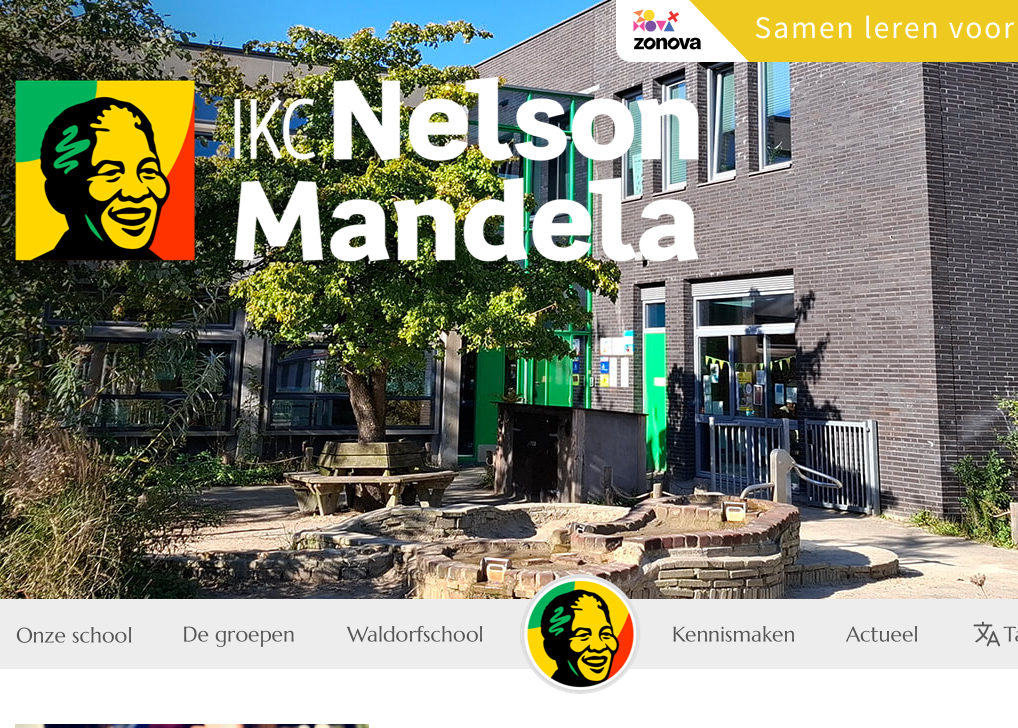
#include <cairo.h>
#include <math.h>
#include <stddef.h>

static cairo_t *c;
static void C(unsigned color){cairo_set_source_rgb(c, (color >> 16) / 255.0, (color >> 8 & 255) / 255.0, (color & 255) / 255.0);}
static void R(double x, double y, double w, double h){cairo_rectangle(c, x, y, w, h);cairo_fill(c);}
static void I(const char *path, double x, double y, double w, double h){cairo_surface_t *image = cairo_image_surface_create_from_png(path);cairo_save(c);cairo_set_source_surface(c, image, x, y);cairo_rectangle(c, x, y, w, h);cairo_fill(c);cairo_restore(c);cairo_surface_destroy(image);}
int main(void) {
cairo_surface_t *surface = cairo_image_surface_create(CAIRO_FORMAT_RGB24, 1018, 728);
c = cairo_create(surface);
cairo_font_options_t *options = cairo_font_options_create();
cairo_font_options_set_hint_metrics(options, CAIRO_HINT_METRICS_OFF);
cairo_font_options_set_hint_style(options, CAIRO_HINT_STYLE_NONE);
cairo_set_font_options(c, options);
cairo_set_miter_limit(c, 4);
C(0xffffff);
cairo_paint(c);
I("1.png",0,0,1018,599);
I("2.png",0,0,328,488);
I("3.png",616,0,133,62);
I("14.png",749,0,269,62);
I("4.png",755,15,260,24);
I("5.png",15,76,690,194);
C(0xededed);
R(0,599,1018,70);
I("6.png",16,627,116,16);
I("7.png",184,626,110,21);
I("8.png",346,626,137,16);
I("9.png",520,574,121,120);
I("10.png",673,626,122,16);
I("11.png",845,626,73,16);
I("12.png",973,621,45,26);
I("13.png",15,724,354,4);
cairo_surface_write_to_png(surface, "o.png");
cairo_font_options_destroy(options);
cairo_destroy(c);
cairo_surface_destroy(surface);
return 0;
}
